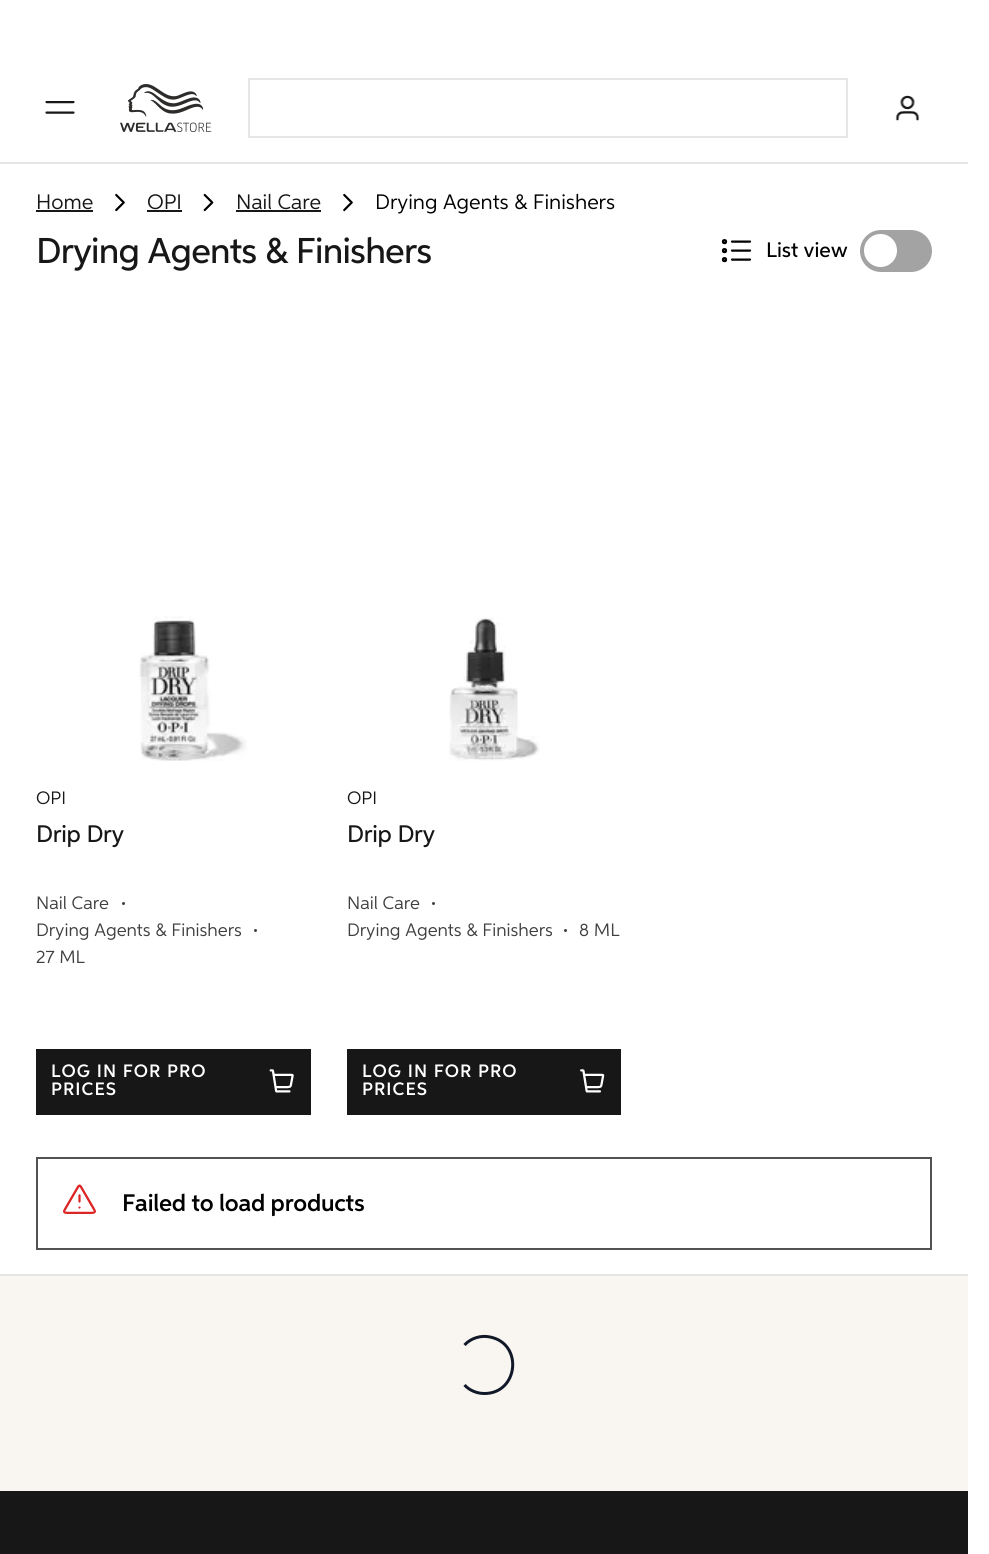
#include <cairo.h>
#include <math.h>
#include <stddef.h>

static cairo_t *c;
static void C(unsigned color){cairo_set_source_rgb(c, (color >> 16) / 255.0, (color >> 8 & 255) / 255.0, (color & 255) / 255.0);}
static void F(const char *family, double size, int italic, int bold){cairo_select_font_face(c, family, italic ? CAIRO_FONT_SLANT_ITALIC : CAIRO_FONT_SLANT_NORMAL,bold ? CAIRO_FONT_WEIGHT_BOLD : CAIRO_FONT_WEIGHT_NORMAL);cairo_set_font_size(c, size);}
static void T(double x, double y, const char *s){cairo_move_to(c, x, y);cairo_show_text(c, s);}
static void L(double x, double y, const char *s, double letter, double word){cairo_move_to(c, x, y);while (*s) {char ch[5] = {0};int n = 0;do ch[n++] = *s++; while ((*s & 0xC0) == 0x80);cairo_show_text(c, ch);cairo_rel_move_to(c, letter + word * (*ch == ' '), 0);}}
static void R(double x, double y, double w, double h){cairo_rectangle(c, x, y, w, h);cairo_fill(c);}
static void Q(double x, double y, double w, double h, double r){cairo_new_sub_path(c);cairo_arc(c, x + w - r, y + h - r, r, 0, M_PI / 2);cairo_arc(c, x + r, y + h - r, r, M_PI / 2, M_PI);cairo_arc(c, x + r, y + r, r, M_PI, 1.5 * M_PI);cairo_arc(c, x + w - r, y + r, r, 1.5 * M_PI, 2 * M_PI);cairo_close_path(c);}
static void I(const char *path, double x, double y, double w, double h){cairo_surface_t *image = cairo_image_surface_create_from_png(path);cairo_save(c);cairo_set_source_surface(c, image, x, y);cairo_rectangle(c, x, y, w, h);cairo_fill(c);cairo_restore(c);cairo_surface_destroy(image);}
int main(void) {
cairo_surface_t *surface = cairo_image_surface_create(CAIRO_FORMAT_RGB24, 989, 1554);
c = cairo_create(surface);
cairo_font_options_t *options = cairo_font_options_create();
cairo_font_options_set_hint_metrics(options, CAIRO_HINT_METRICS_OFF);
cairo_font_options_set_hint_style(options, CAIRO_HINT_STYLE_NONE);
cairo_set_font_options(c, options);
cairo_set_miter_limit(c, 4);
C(0xffffff);
cairo_paint(c);
C(0xe5e5e5);
R(0,162,968,2);
I("1.png",45,101,30,13);
I("2.png",120,84,92,48);
cairo_rectangle(c,249,79,598,58);
cairo_stroke(c);
I("3.png",895,95,25,26);
F("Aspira",21,0,0);
C(0x171717);
T(36,209,"Home");
R(36,210,57,2);
I("4.png",115,193,10,19);
T(147,209,"OPI");
R(147,210,35,2);
I("5.png",203,193,11,19);
T(236,209,"Nail Care");
R(236,210,85,2);
I("4.png",343,193,10,19);
C(0x000000);
T(375,209,"Drying Agents & Finishers");
F("Aspira Medium",36,0,0);
C(0x171717);
L(36,263,"Drying Agents & Finishers",-.75,0);
I("6.png",721,239,31,24);
F("Aspira Medium",21,0,0);
C(0x000000);
T(766,257,"List view");
C(0xa3a3a3);
Q(860,230,72,42,21);
cairo_fill(c);
C(0xffffff);
cairo_arc(c,880.5,250.5,16.5,0,2 * M_PI);
cairo_fill(c);
I("7.png",139,616,108,145);
F("Aspira",18,0,0);
C(0x171717);
T(36,804,"OPI");
F("Aspira Medium",24,0,0);
L(36,842,"Drip Dry",-.25,0);
F("Aspira",18,0,0);
C(0x404040);
T(36,909,"Nail Care");
cairo_new_path(c);
cairo_arc(c,123.5,903.5,1.5,0,2 * M_PI);
cairo_fill(c);
T(36,936,"Drying Agents & Finishers");
cairo_new_path(c);
cairo_arc(c,255.5,930.5,1.5,0,2 * M_PI);
cairo_fill(c);
T(36,963,"27 ML");
C(0x171717);
R(36,1049,275,66);
F("Aspira SemiBold",18,0,0);
C(0xffffff);
L(51,1077,"LOG IN FOR PRO",1.1,0);
L(51,1095,"PRICES",1.1,0);
I("8.png",269,1069,25,24);
I("9.png",449,617,91,144);
F("Aspira",18,0,0);
C(0x171717);
T(347,804,"OPI");
F("Aspira Medium",24,0,0);
L(347,842,"Drip Dry",-.25,0);
F("Aspira",18,0,0);
C(0x404040);
T(347,909,"Nail Care");
cairo_new_path(c);
cairo_arc(c,433.5,903.5,1.5,0,2 * M_PI);
cairo_fill(c);
T(347,936,"Drying Agents & Finishers");
cairo_new_path(c);
cairo_arc(c,565.5,930.5,1.5,0,2 * M_PI);
cairo_fill(c);
T(579,936,"8 ML");
C(0x171717);
R(347,1049,274,66);
F("Aspira SemiBold",18,0,0);
C(0xffffff);
L(362,1077,"LOG IN FOR PRO",1.1,0);
L(362,1095,"PRICES",1.1,0);
I("10.png",580,1069,25,24);
cairo_rectangle(c,37,1158,894,91);
C(0x525252);
cairo_stroke(c);
I("11.png",63,1184,33,30);
F("Aspira SemiBold",24,0,0);
C(0x000000);
L(122,1211,"Failed to load products",-.25,0);
C(0xf9f6f2);
R(0,1276,968,215);
C(0xe5e5e5);
R(0,1274,968,2);
cairo_new_path(c);
cairo_move_to(c,464.5,1345);
cairo_curve_to(c,471,1338,481,1335,490,1337);
cairo_curve_to(c,523.5,1343.5,518.5,1393.5,484.5,1393.5);
cairo_curve_to(c,477,1393.5,469.5,1390.5,464.5,1385);
C(0x111827);
cairo_set_line_width(c,3);
cairo_stroke(c);
C(0x171717);
R(0,1491,968,63);
cairo_surface_write_to_png(surface, "o.png");
cairo_font_options_destroy(options);
cairo_destroy(c);
cairo_surface_destroy(surface);
return 0;
}
